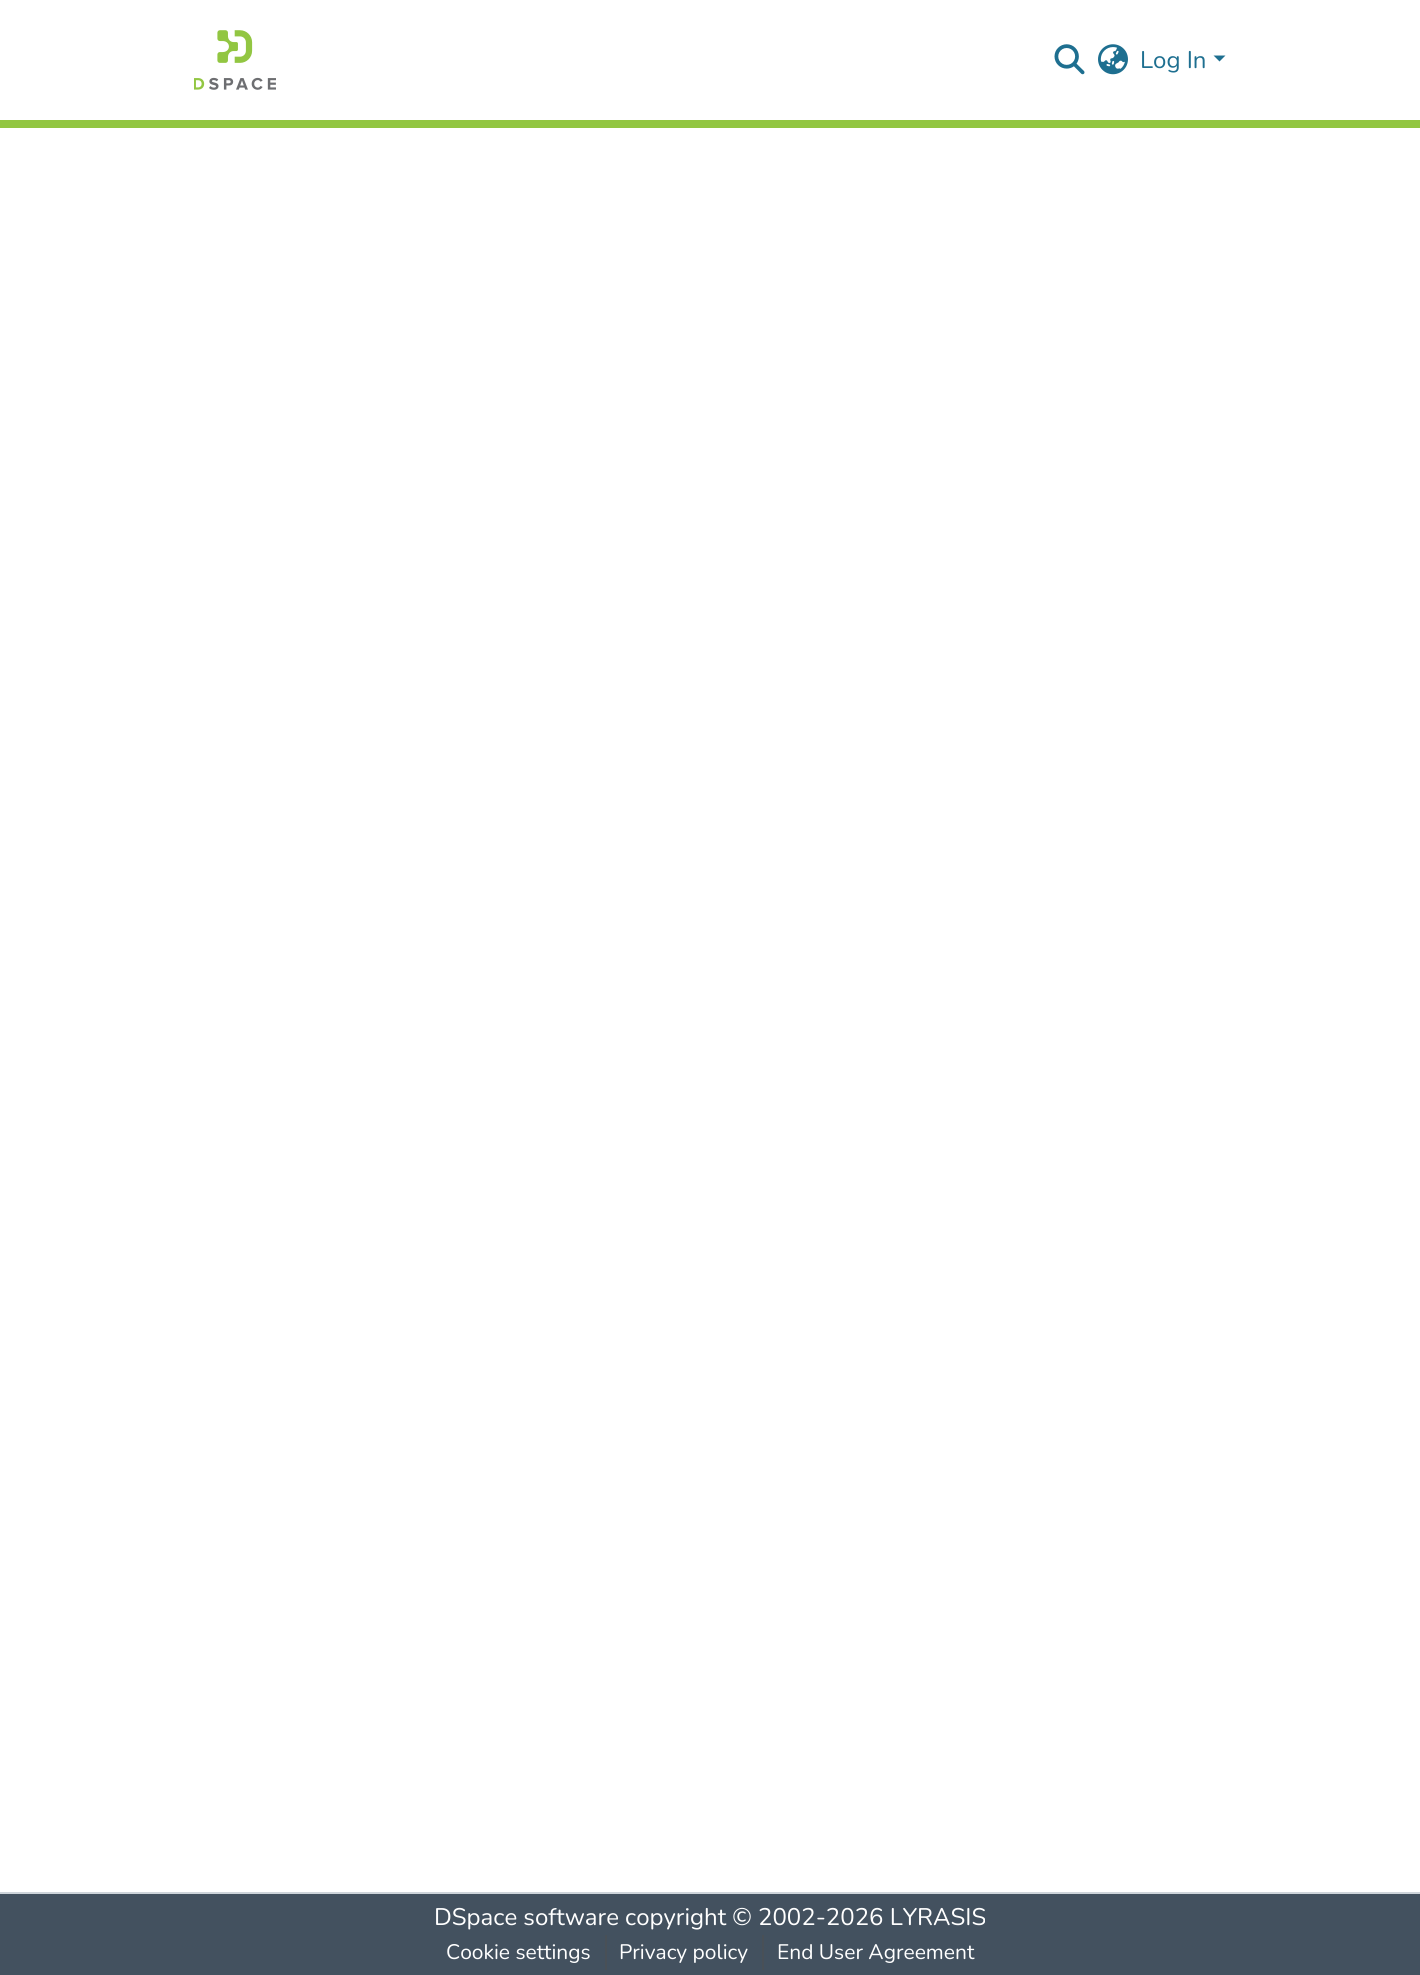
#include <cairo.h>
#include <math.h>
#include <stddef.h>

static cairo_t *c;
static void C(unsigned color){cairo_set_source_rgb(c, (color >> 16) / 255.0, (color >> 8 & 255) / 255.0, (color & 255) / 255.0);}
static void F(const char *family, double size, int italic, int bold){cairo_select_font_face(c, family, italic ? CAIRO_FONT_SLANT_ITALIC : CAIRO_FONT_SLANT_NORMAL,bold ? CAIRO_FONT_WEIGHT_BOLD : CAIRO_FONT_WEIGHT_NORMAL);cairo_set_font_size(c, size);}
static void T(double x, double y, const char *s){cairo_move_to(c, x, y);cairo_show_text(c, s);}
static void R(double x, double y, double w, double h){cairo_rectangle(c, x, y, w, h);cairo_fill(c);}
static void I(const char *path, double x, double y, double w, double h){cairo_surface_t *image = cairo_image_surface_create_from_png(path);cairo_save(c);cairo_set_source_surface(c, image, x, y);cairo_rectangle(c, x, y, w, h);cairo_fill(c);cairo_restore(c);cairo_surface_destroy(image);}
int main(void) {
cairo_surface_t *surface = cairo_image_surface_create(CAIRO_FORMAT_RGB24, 1420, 1975);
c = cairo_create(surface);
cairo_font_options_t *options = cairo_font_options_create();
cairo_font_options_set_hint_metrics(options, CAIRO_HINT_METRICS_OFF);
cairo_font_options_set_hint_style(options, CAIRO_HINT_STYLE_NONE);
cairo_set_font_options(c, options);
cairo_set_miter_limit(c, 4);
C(0xffffff);
cairo_paint(c);
C(0x92c642);
R(0,120,1420,8);
I("1.png",194,30,82,60);
I("2.png",1054,44,31,31);
I("3.png",1098,44,30,31);
F("Nunito",24,0,0);
C(0x1e6f90);
T(1140,68,"Log In");
cairo_new_path(c);
cairo_move_to(c,1213.5,55.5);
cairo_line_to(c,1225.5,55.5);
cairo_line_to(c,1219.5,61.5);
cairo_close_path(c);
cairo_fill(c);
C(0x43515f);
R(0,1894,1420,81);
C(0xced4da);
R(0,1892,1420,2);
C(0xffffff);
T(434,1925,"DSpace software copyright © 2002-2026 LYRASIS");
F("Nunito",21,0,0);
T(446,1959,"Cookie settings");
C(0x495057);
R(605,1935,2,35);
C(0xffffff);
T(619,1959,"Privacy policy");
C(0x495057);
R(762,1935,2,35);
C(0xffffff);
T(777,1959,"End User Agreement");
cairo_surface_write_to_png(surface, "o.png");
cairo_font_options_destroy(options);
cairo_destroy(c);
cairo_surface_destroy(surface);
return 0;
}
